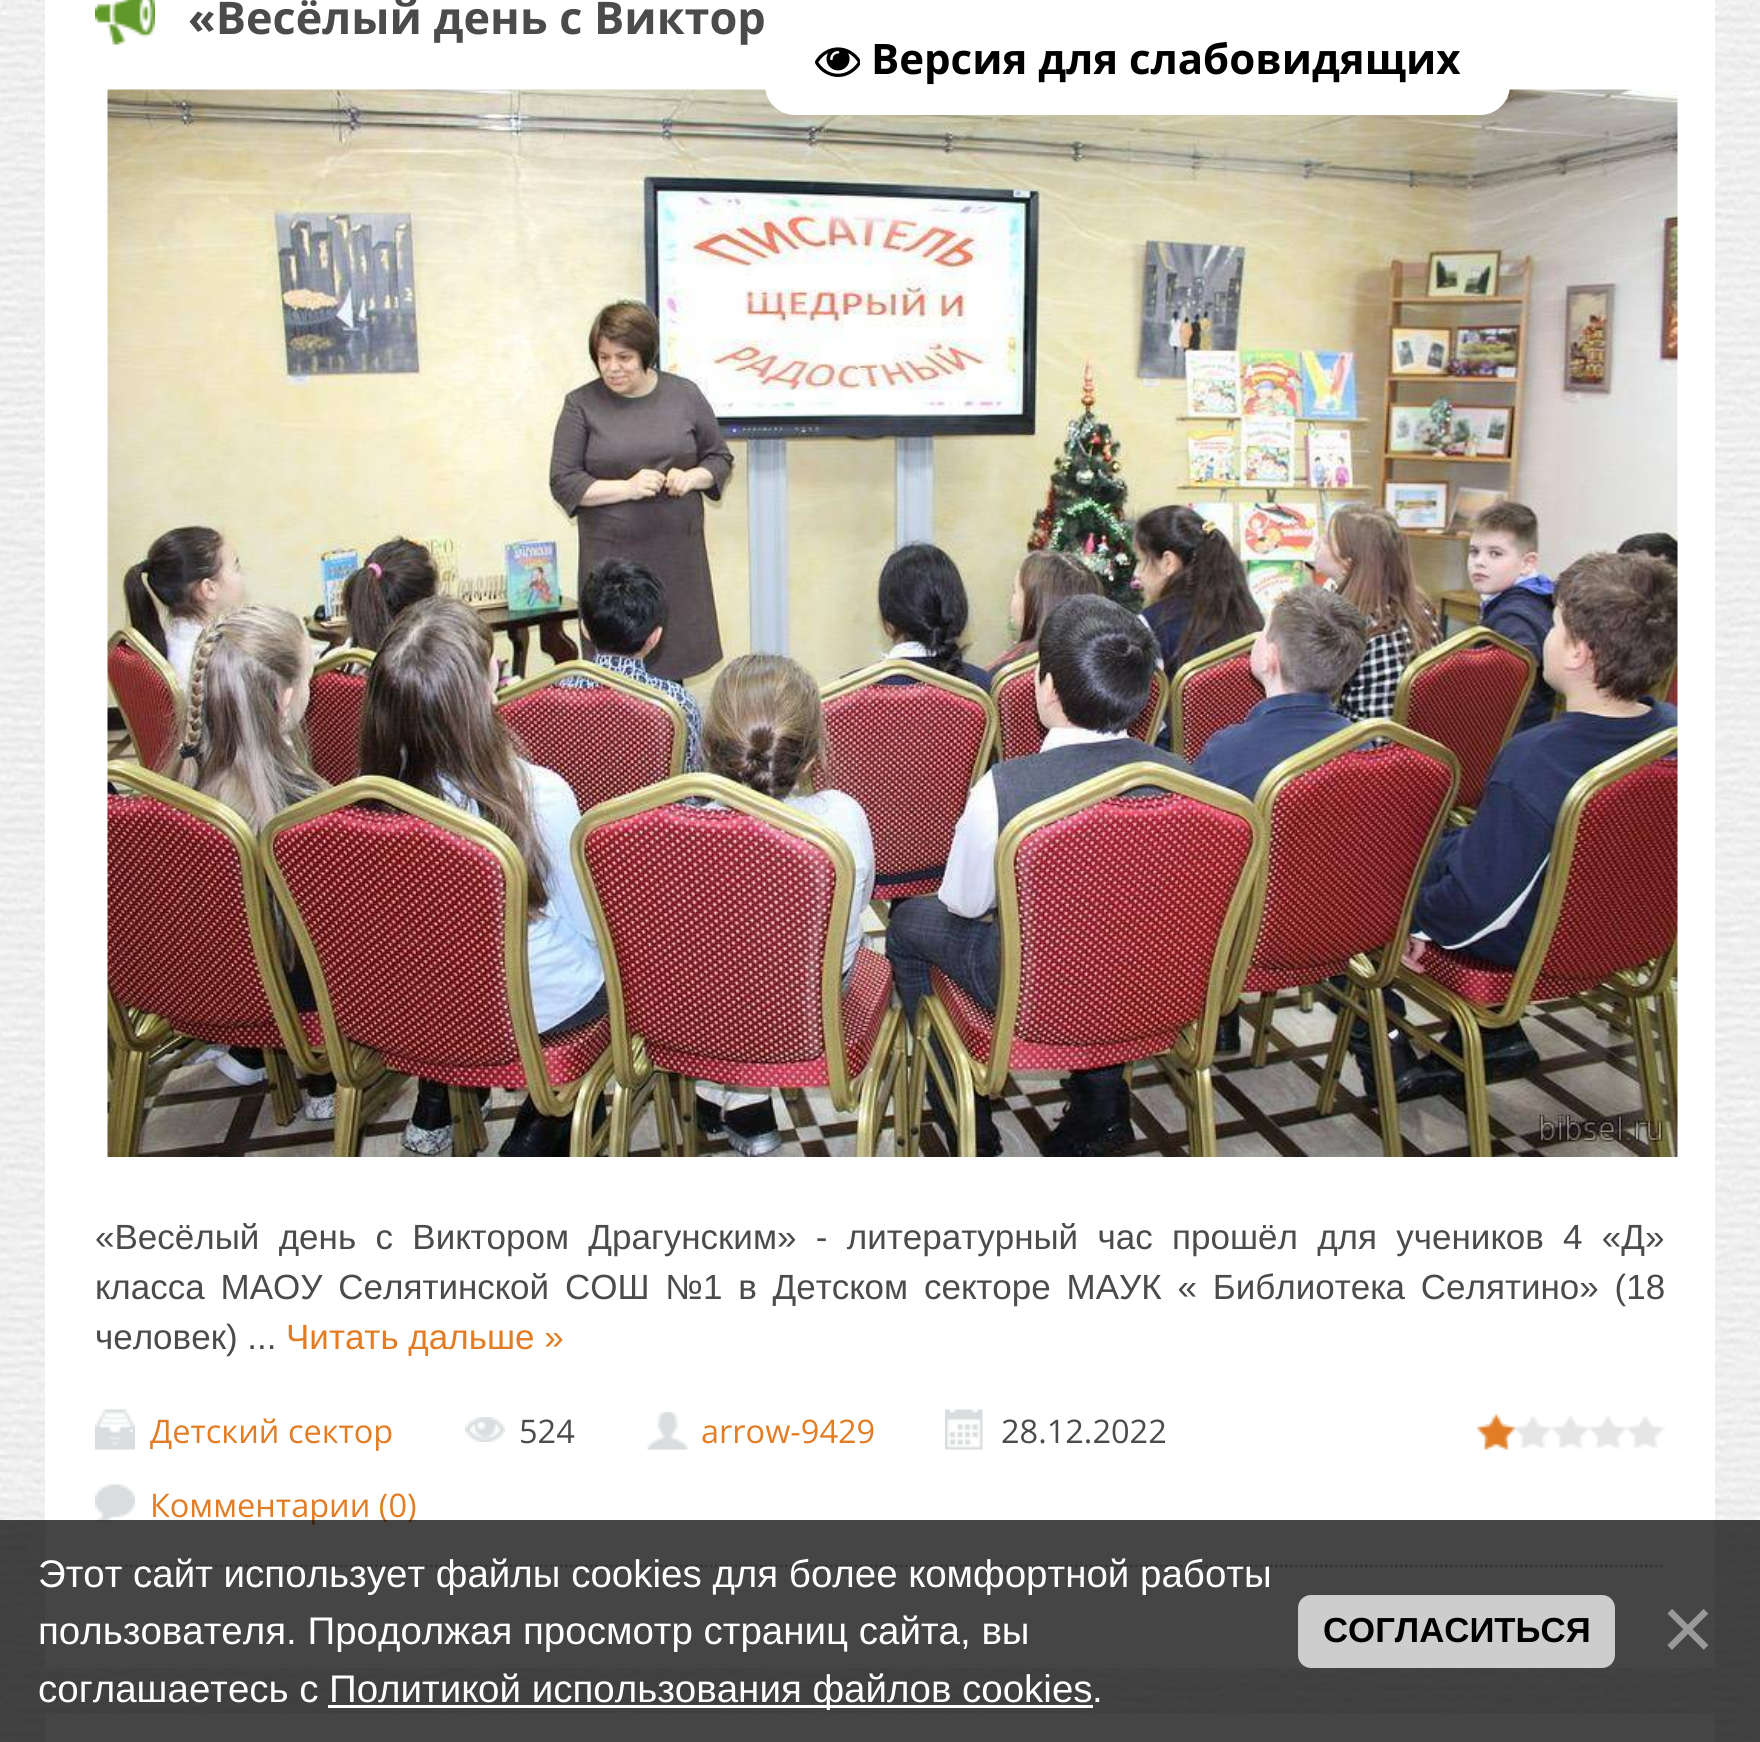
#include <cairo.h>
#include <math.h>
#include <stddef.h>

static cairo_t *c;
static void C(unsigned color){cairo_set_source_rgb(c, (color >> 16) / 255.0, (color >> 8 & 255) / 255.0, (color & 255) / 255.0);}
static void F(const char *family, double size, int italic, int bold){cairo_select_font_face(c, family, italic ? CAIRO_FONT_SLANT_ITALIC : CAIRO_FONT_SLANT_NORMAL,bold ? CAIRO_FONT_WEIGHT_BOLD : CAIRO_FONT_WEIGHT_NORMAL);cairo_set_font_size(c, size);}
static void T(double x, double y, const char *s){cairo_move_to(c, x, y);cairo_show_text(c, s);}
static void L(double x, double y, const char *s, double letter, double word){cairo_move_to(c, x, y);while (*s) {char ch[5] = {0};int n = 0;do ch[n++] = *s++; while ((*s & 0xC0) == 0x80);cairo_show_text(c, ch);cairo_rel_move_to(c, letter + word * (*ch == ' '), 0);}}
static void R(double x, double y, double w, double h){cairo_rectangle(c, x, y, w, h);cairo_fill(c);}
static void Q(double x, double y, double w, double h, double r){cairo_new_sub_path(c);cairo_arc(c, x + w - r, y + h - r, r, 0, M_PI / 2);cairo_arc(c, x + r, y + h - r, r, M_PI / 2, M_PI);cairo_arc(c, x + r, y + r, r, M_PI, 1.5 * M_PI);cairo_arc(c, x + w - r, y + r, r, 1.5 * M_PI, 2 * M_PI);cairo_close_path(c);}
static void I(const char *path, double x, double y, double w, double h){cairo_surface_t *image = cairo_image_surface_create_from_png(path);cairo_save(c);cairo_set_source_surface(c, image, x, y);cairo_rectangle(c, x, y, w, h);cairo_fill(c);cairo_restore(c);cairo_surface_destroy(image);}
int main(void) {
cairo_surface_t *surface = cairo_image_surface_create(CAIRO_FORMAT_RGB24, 1760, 1742);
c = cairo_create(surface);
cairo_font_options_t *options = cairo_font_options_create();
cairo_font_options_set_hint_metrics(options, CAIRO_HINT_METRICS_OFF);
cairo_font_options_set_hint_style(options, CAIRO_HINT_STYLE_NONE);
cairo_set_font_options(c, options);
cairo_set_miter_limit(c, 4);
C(0xffffff);
cairo_paint(c);
I("1.png",0,0,1760,1742);
C(0xffffff);
R(45,0,1670,1668);
cairo_new_path(c);
cairo_move_to(c,95,1566);
cairo_line_to(c,1665,1566);
C(0xbbbbbb);
cairo_set_line_width(c,2.5);
cairo_set_dash(c,(double[]){2.5,2.5},2,0);
cairo_stroke(c);
I("2.png",95,0,60,45);
F("Open Sans",45,0,1);
C(0x4b4b4b);
T(188,34,"«Весёлый день с Виктор");
I("3.png",107,89,1571,1068);
F("Liberation Sans",35,0,0);
L(95,1249,"«Весёлый день с Виктором Драгунским» - литературный час прошёл для учеников 4 «Д»",0,9.6);
L(95,1299,"класса МАОУ Селятинской СОШ №1 в Детском секторе МАУК « Библиотека Селятино» (18",0,6.1);
T(95,1349,"человек) ...");
C(0xe27d25);
T(286,1349,"Читать дальше »");
I("4.png",95,1409,40,41);
F("Open Sans",32.5,0,0);
T(150,1443,"Детский сектор");
I("5.png",465,1417,40,25);
C(0x4b4b4b);
T(519,1443,"524");
I("6.png",647,1412,41,38);
C(0xe27d25);
T(701,1443,"arrow-9429");
I("7.png",945,1409,38,41);
C(0x4b4b4b);
T(1001,1443,"28.12.2022");
I("8.png",1477,1415,188,34);
I("9.png",1477,1413,38,37);
I("10.png",95,1484,40,38);
C(0xe27d25);
T(150,1517,"Комментарии (0)");
C(0xffffff);
R(45,1713,1670,29);
cairo_new_path(c);
cairo_move_to(c,765,0);
cairo_line_to(c,1510,0);
cairo_line_to(c,1510,85);
cairo_curve_to(c,1510,101.5,1496.5,115,1480,115);
cairo_line_to(c,795,115);
cairo_curve_to(c,778.5,115,765,101.5,765,85);
cairo_close_path(c);
cairo_fill(c);
I("11.png",815,47,45,30);
F("Open Sans",42,0,1);
C(0x000000);
T(871,74,"Версия для слабовидящих");
cairo_set_source_rgba(c,0,0,0,0.73);
R(0,1520,1760,222);
F("Liberation Sans",38.5,0,0);
C(0xffffff);
T(38,1587,"Этот сайт использует файлы cookies для более комфортной работы");
T(38,1644,"пользователя. Продолжая просмотр страниц сайта, вы");
T(38,1702,"соглашаетесь с");
R(328,1705,765,3);
T(329,1702,"Политикой использования файлов cookies");
T(1092,1702,".");
C(0xcdcdcd);
Q(1298,1595,317,73,13);
cairo_fill(c);
F("Liberation Sans",34.75,0,1);
C(0x000000);
T(1323,1642,"СОГЛАСИТЬСЯ");
F("Liberation Sans",92,0,0);
C(0x999999);
T(1661,1660,"×");
cairo_surface_write_to_png(surface, "o.png");
cairo_font_options_destroy(options);
cairo_destroy(c);
cairo_surface_destroy(surface);
return 0;
}
